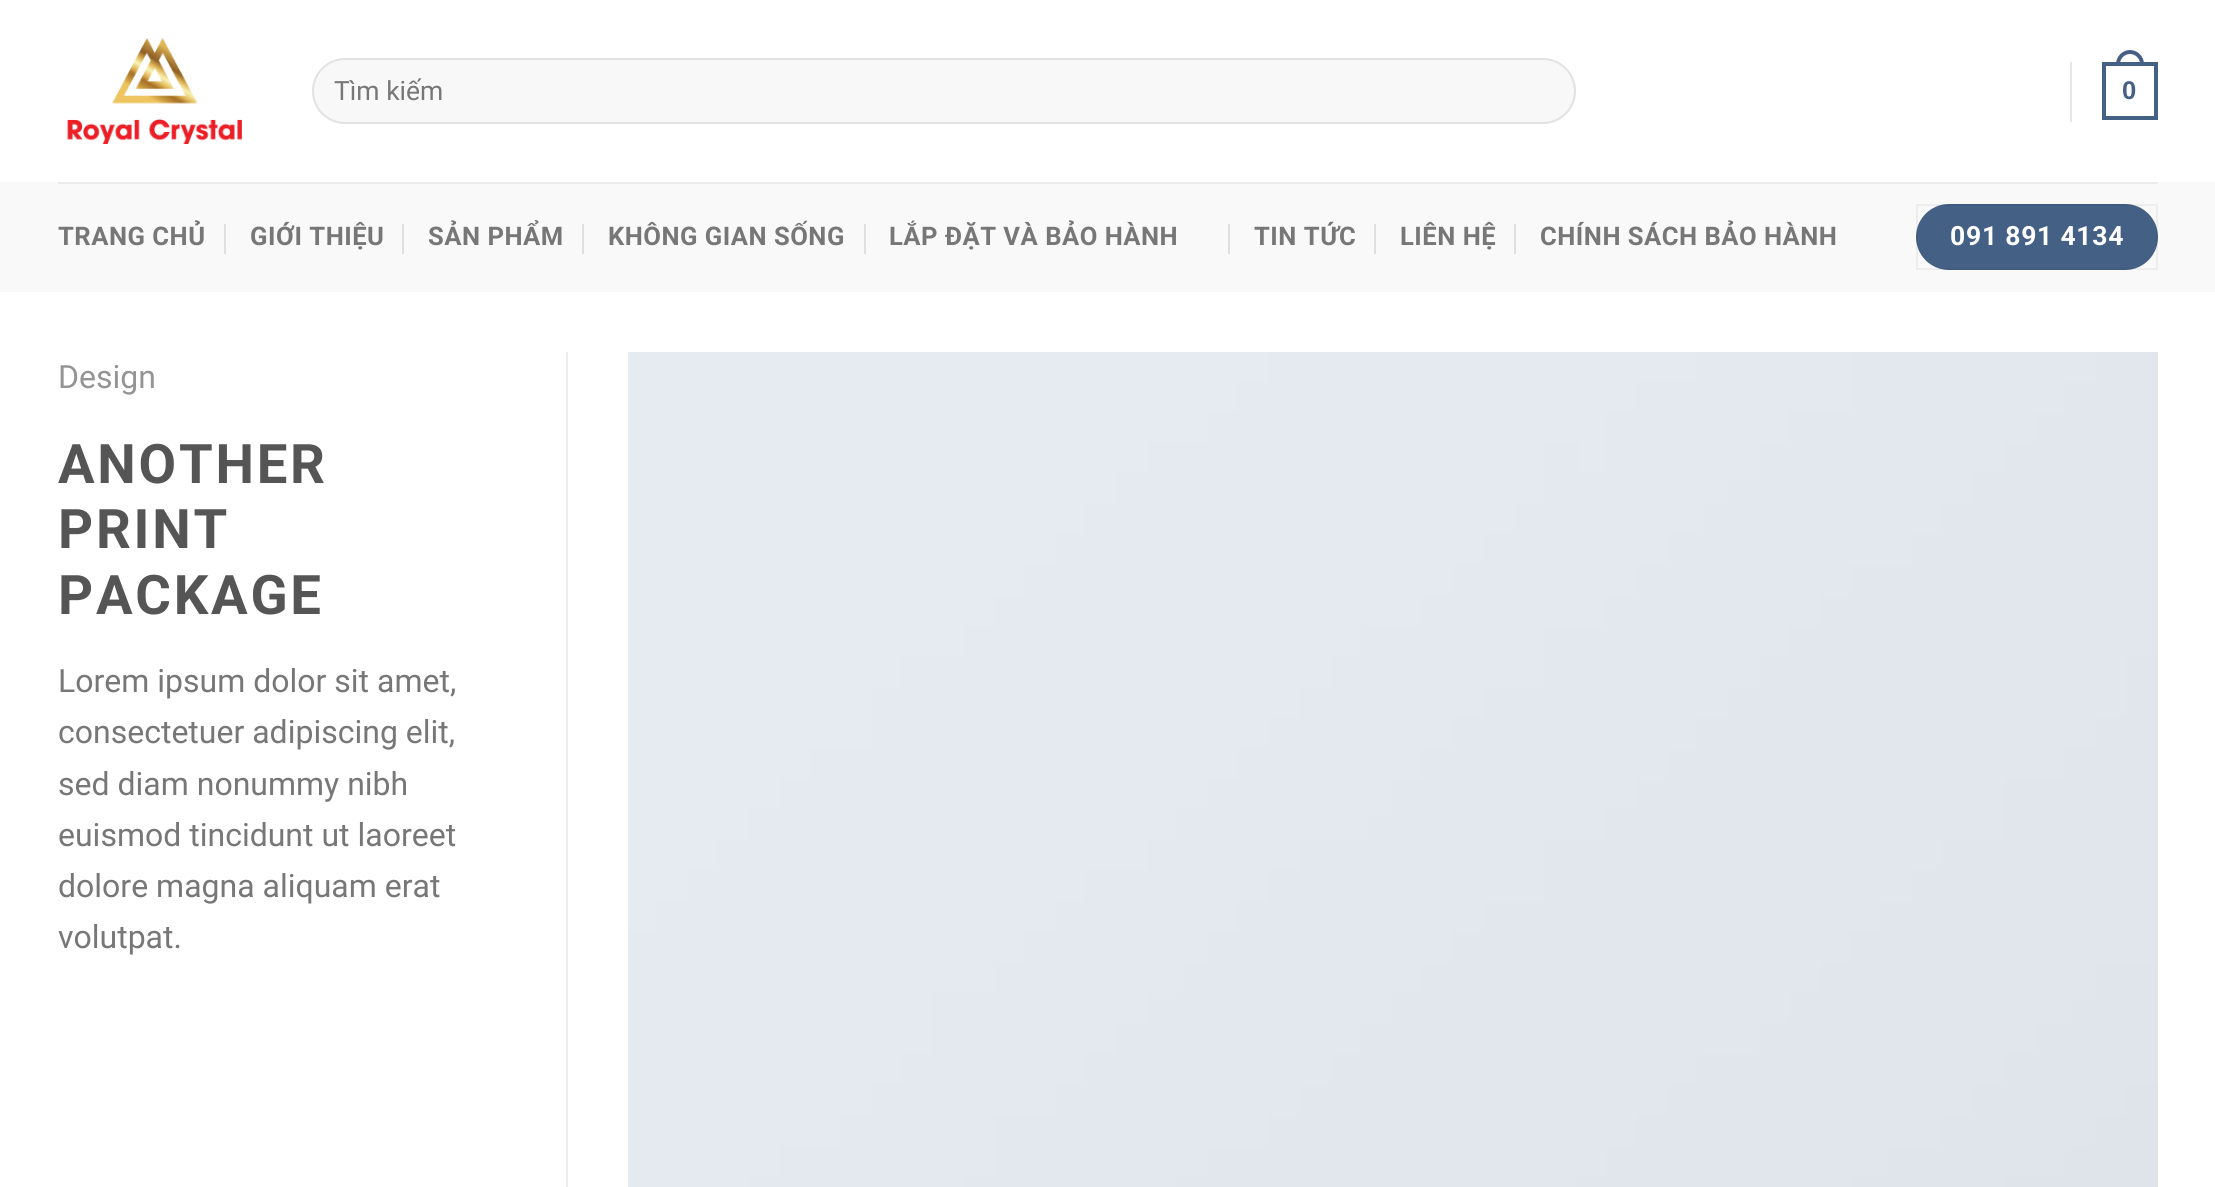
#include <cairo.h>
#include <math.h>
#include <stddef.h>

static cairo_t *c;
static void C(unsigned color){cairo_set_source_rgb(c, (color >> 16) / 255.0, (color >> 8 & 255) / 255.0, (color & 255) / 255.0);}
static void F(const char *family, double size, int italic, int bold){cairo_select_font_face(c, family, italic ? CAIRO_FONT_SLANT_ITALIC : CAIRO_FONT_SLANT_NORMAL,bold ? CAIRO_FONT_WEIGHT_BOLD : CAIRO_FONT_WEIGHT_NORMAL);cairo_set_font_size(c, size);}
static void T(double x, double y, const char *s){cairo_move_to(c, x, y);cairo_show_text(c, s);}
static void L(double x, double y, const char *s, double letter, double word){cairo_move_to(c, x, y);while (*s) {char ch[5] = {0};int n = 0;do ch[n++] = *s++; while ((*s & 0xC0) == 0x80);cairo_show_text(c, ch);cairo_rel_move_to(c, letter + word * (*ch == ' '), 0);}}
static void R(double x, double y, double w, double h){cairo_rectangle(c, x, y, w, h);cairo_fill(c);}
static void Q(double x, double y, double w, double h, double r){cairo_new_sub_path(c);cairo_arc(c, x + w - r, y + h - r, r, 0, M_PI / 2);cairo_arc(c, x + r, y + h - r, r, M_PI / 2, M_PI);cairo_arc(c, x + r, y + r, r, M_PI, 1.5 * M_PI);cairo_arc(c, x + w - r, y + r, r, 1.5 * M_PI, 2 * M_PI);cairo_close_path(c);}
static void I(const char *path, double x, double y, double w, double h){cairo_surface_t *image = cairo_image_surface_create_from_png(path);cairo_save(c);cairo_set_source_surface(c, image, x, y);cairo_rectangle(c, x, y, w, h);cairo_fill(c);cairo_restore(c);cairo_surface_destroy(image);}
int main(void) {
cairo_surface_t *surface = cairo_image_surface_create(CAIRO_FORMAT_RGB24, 2215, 1187);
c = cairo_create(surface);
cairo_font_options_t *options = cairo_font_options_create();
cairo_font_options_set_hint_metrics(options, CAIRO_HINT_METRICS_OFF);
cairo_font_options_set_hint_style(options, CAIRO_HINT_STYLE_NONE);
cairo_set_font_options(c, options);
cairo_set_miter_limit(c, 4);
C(0xffffff);
cairo_paint(c);
I("1.png",67,38,175,106);
C(0xf8f8f8);
Q(312,58,1264,66,33);
cairo_fill(c);
Q(313,59,1262,64,32);
cairo_set_source_rgba(c,0,0,0,0.09);
cairo_stroke(c);
F("Roboto",26.5,0,0);
C(0x777777);
T(334,100,"Tìm kiếm");
C(0xe6e6e6);
R(2070,62,2,60);
cairo_rectangle(c,2104,64,52,54);
C(0x446084);
cairo_set_line_width(c,4);
cairo_stroke(c);
cairo_set_fill_rule(c,CAIRO_FILL_RULE_EVEN_ODD);
cairo_new_path(c);
cairo_move_to(c,2130,50);
cairo_curve_to(c,2137.5,50,2144,56.5,2144,64);
cairo_line_to(c,2144,66);
cairo_line_to(c,2116,66);
cairo_line_to(c,2116,64);
cairo_curve_to(c,2116,56.5,2122.5,50,2130,50);
cairo_close_path(c);
cairo_move_to(c,2130,54);
cairo_curve_to(c,2135.5,54,2140,58.5,2140,64);
cairo_line_to(c,2140,66);
cairo_line_to(c,2120,66);
cairo_line_to(c,2120,64);
cairo_curve_to(c,2120,58.5,2124.5,54,2130,54);
cairo_close_path(c);
cairo_fill(c);
F("Liberation Sans",25.6,0,1);
L(2122,99,"0",.5,0);
C(0xf9f9f9);
R(0,182,2215,110);
C(0xececec);
R(58,182,2100,2);
F("Roboto",25.6,0,1);
C(0x777777);
L(58,245,"TRANG CHỦ",.5,0);
C(0xe0e0e0);
R(224,224,2,30);
C(0x777777);
L(250,245,"GIỚI THIỆU",.5,0);
C(0xe0e0e0);
R(402,224,2,30);
C(0x777777);
L(428,245,"SẢN PHẨM",.5,0);
C(0xe0e0e0);
R(582,224,2,30);
C(0x777777);
L(608,245,"KHÔNG GIAN SỐNG",.5,0);
C(0xe0e0e0);
R(864,224,2,30);
C(0x777777);
L(889,245,"LẮP ĐẶT VÀ BẢO HÀNH",.5,0);
C(0xe0e0e0);
R(1228,224,2,30);
C(0x777777);
L(1254,245,"TIN TỨC",.5,0);
C(0xe0e0e0);
R(1374,224,2,30);
C(0x777777);
L(1400,245,"LIÊN HỆ",.5,0);
C(0xe0e0e0);
R(1514,224,2,30);
C(0x777777);
L(1540,245,"CHÍNH SÁCH BẢO HÀNH",.5,0);
C(0x446084);
Q(1916,204,242,66,33);
cairo_fill(c);
cairo_rectangle(c,1917,205,240,64);
cairo_set_source_rgba(c,0,0,0,0.05);
cairo_set_line_width(c,2);
cairo_stroke(c);
F("Roboto",26.5,0,1);
C(0xffffff);
L(1950,245,"091 891 4134",.75,0);
C(0xececec);
R(566,352,2,835);
F("Roboto",32,0,0);
C(0x949494);
T(58,388,"Design");
F("Roboto",54.5,0,1);
C(0x555555);
L(58,483,"ANOTHER",2.75,0);
L(58,548,"PRINT",2.75,0);
L(58,614,"PACKAGE",2.75,0);
F("Roboto",32,0,0);
C(0x777777);
T(58,692,"Lorem ipsum dolor sit amet,");
T(58,743,"consectetuer adipiscing elit,");
T(58,795,"sed diam nonummy nibh");
T(58,846,"euismod tincidunt ut laoreet");
T(58,897,"dolore magna aliquam erat");
T(58,948,"volutpat.");
I("2.png",628,352,1530,835);
cairo_surface_write_to_png(surface, "o.png");
cairo_font_options_destroy(options);
cairo_destroy(c);
cairo_surface_destroy(surface);
return 0;
}
